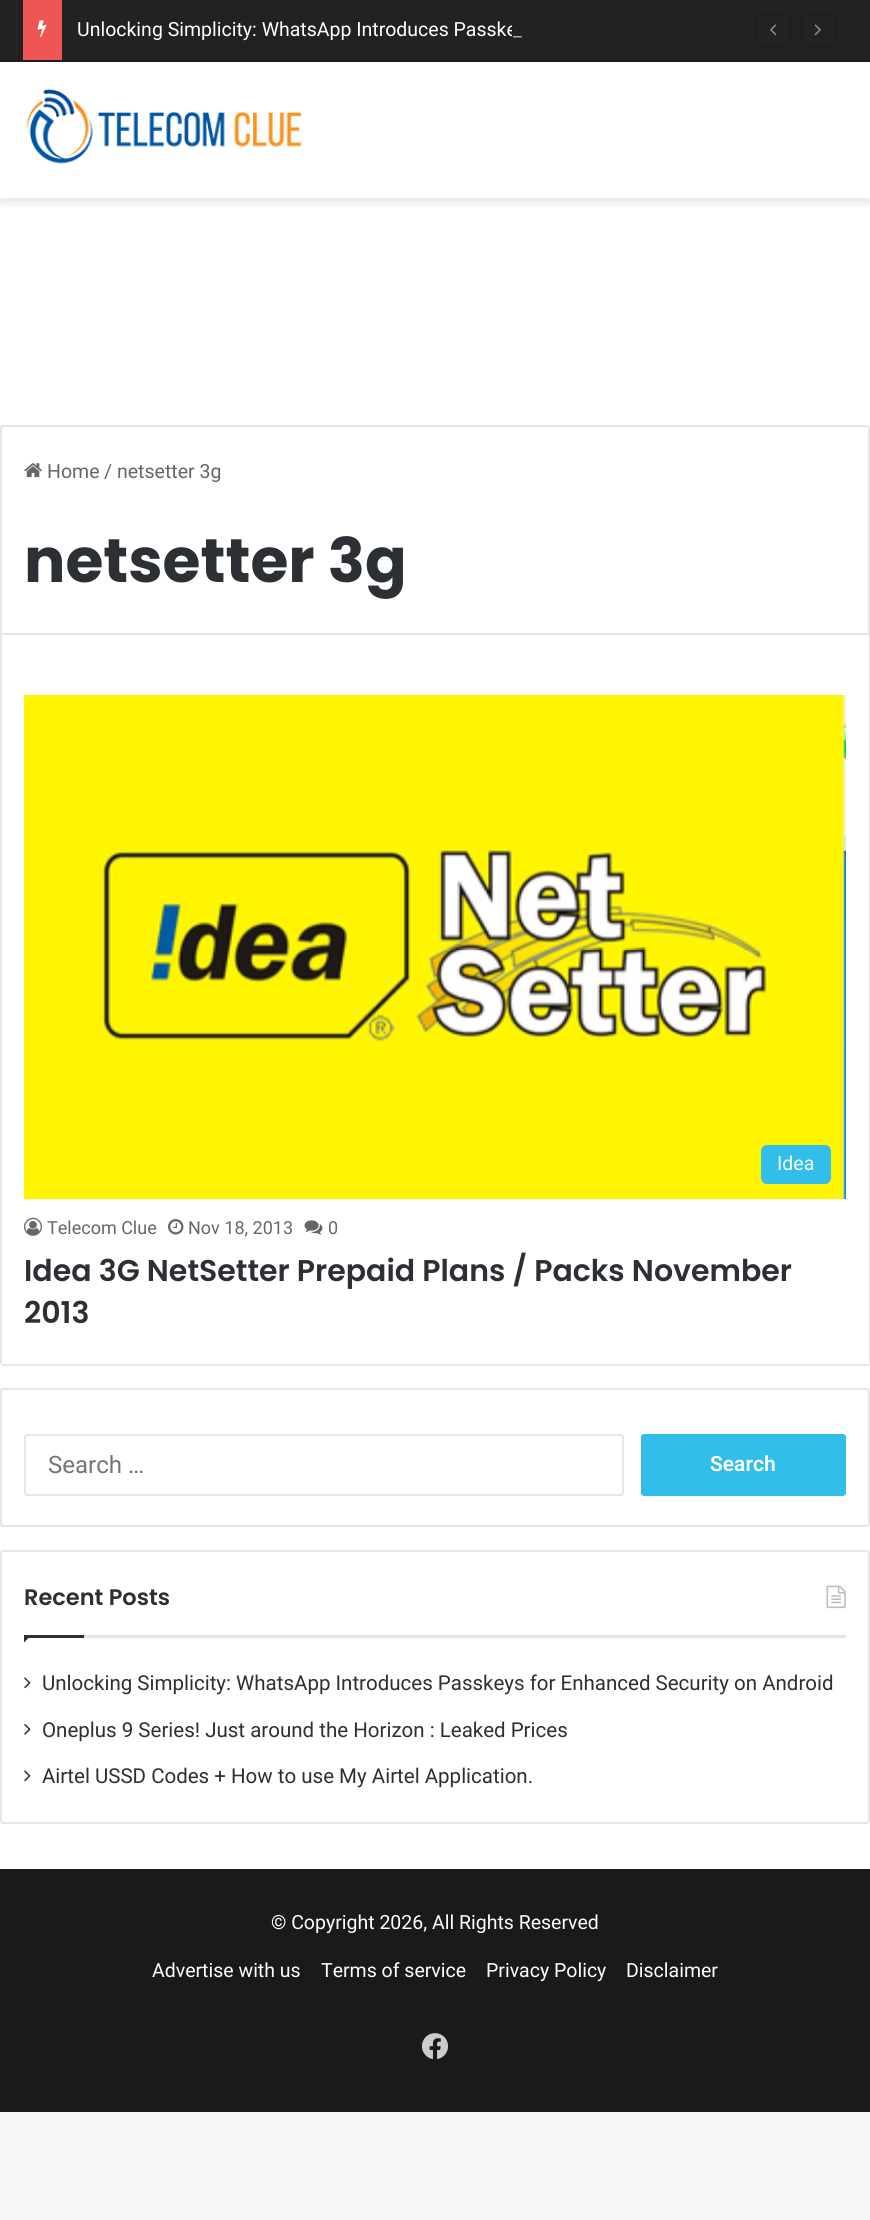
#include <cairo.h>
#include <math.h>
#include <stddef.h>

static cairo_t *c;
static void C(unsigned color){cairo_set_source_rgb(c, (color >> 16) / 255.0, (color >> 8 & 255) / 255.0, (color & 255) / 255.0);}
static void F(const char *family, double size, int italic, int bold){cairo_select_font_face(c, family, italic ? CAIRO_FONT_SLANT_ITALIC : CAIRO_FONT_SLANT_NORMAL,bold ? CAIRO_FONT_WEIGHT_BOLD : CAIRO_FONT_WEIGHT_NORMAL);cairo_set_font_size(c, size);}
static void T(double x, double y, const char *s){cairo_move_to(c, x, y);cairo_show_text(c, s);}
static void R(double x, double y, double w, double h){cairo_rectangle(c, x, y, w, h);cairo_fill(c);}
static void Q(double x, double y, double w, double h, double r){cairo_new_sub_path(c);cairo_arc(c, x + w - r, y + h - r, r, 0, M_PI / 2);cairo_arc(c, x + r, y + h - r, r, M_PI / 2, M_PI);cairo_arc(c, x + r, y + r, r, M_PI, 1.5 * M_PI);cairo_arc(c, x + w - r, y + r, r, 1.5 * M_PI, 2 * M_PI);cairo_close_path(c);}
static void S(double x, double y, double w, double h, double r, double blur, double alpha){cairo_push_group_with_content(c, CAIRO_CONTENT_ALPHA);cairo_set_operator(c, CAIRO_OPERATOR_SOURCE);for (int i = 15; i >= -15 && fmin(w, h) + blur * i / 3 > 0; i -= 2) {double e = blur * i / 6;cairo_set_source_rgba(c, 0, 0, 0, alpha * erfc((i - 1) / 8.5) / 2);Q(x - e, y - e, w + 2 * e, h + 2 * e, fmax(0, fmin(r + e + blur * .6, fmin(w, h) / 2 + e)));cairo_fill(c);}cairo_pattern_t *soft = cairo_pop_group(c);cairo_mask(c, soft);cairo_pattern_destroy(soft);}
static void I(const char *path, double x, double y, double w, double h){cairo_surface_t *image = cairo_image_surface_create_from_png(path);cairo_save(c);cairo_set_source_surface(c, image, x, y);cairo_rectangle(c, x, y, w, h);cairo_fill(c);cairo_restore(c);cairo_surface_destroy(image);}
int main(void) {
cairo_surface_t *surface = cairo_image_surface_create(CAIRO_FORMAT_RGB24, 870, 2220);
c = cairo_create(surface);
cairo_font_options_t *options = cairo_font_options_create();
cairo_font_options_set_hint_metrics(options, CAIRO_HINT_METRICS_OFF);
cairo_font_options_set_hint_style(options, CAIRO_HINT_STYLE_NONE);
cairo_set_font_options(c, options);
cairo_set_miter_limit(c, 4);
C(0xf7f7f7);
cairo_paint(c);
C(0xffffff);
R(0,62,870,1807);
cairo_save(c);
cairo_rectangle(c,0,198,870,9);
cairo_clip(c);
C(0x000000);
S(0,66,870,137,0,5,.1);
cairo_restore(c);
C(0x222222);
R(0,0,870,60);
C(0x1f1f1f);
R(0,60,870,2);
C(0xf05555);
R(23,0,39,60);
I("1.png",37,20,10,18);
F("Roboto",19.5,0,0);
C(0xffffff);
T(77,36,"Unlocking Simplicity: WhatsApp Introduces Passke");
C(0x222222);
R(512,25,4,12);
C(0xaaaaaa);
T(513,36,"_");
Q(757,15,33,32,2);
C(0x1f1f1f);
cairo_stroke(c);
I("2.png",770,24,7,12);
Q(802,15,33,32,2);
cairo_stroke(c);
I("3.png",814,24,7,12);
I("4.png",26,88,276,76);
cairo_new_path(c);
cairo_move_to(c,3,426);
cairo_line_to(c,867,426);
cairo_curve_to(c,868,426,869,427,869,428);
cairo_line_to(c,869,634);
cairo_line_to(c,1,634);
cairo_line_to(c,1,428);
cairo_curve_to(c,1,427,2,426,3,426);
cairo_close_path(c);
C(0xe6e6e6);
cairo_stroke(c);
I("5.png",24,463,18,15);
C(0x666666);
T(47,478,"Home");
T(104,478,"/");
T(117,478,"netsetter 3g");
F("Poppins",61.5,0,1);
C(0x2c2f34);
T(24,582,"netsetter 3g");
C(0xe6e6e6);
R(869,635,1,729);
R(2,1364,867,2);
R(0,635,2,729);
I("6.png",24,695,822,504);
C(0x32beeb);
Q(761,1145,70,39,6);
cairo_fill(c);
F("Roboto",19.5,0,0);
C(0xffffff);
T(777,1170,"Idea");
I("7.png",24,1217,18,19);
F("Roboto",18,0,0);
C(0x666666);
T(47,1234,"Telecom Clue");
I("8.png",168,1219,16,16);
T(188,1234,"Nov 18, 2013");
I("9.png",304,1220,19,15);
T(328,1234,"0");
F("Poppins SemiBold",30,0,0);
C(0x2c2f34);
T(24,1281,"Idea 3G NetSetter Prepaid Plans / Packs November");
T(24,1323,"2013");
Q(1,1389,868,137,2);
C(0xe6e6e6);
cairo_stroke(c);
Q(25,1435,598,60,2);
cairo_stroke(c);
F("Roboto",24,0,0);
C(0x757575);
T(48,1473,"Search …");
C(0x32beeb);
Q(641,1434,205,62,3);
cairo_fill(c);
F("Roboto SemiBold",21,0,0);
C(0xffffff);
T(710,1471,"Search");
Q(1,1551,868,272,2);
C(0xe6e6e6);
cairo_stroke(c);
R(84,1635,762,3);
F("Poppins SemiBold",22.5,0,0);
C(0x2c2f34);
T(24,1605,"Recent Posts");
I("10.png",826,1585,20,24);
cairo_new_path(c);
cairo_move_to(c,24,1635);
cairo_line_to(c,31.5,1635);
cairo_line_to(c,24,1642.5);
cairo_close_path(c);
cairo_fill(c);
R(24,1635,60,3);
I("11.png",24,1677,7,12);
F("Roboto",20.5,0,0);
T(42,1690,"Unlocking Simplicity: WhatsApp Introduces Passkeys for Enhanced Security on Android");
I("12.png",24,1724,7,11);
T(42,1737,"Oneplus 9 Series! Just around the Horizon : Leaked Prices");
I("11.png",24,1770,7,12);
T(42,1783,"Airtel USSD Codes + How to use My Airtel Application.");
C(0x1a1a1a);
R(0,1869,870,243);
F("Roboto",19.5,0,0);
C(0xffffff);
T(271,1929,"© Copyright 2026, All Rights Reserved");
T(152,1977,"Advertise with us");
T(321,1977,"Terms of service");
T(486,1977,"Privacy Policy");
T(626,1977,"Disclaimer");
I("13.png",421,2033,28,27);
cairo_surface_write_to_png(surface, "o.png");
cairo_font_options_destroy(options);
cairo_destroy(c);
cairo_surface_destroy(surface);
return 0;
}
